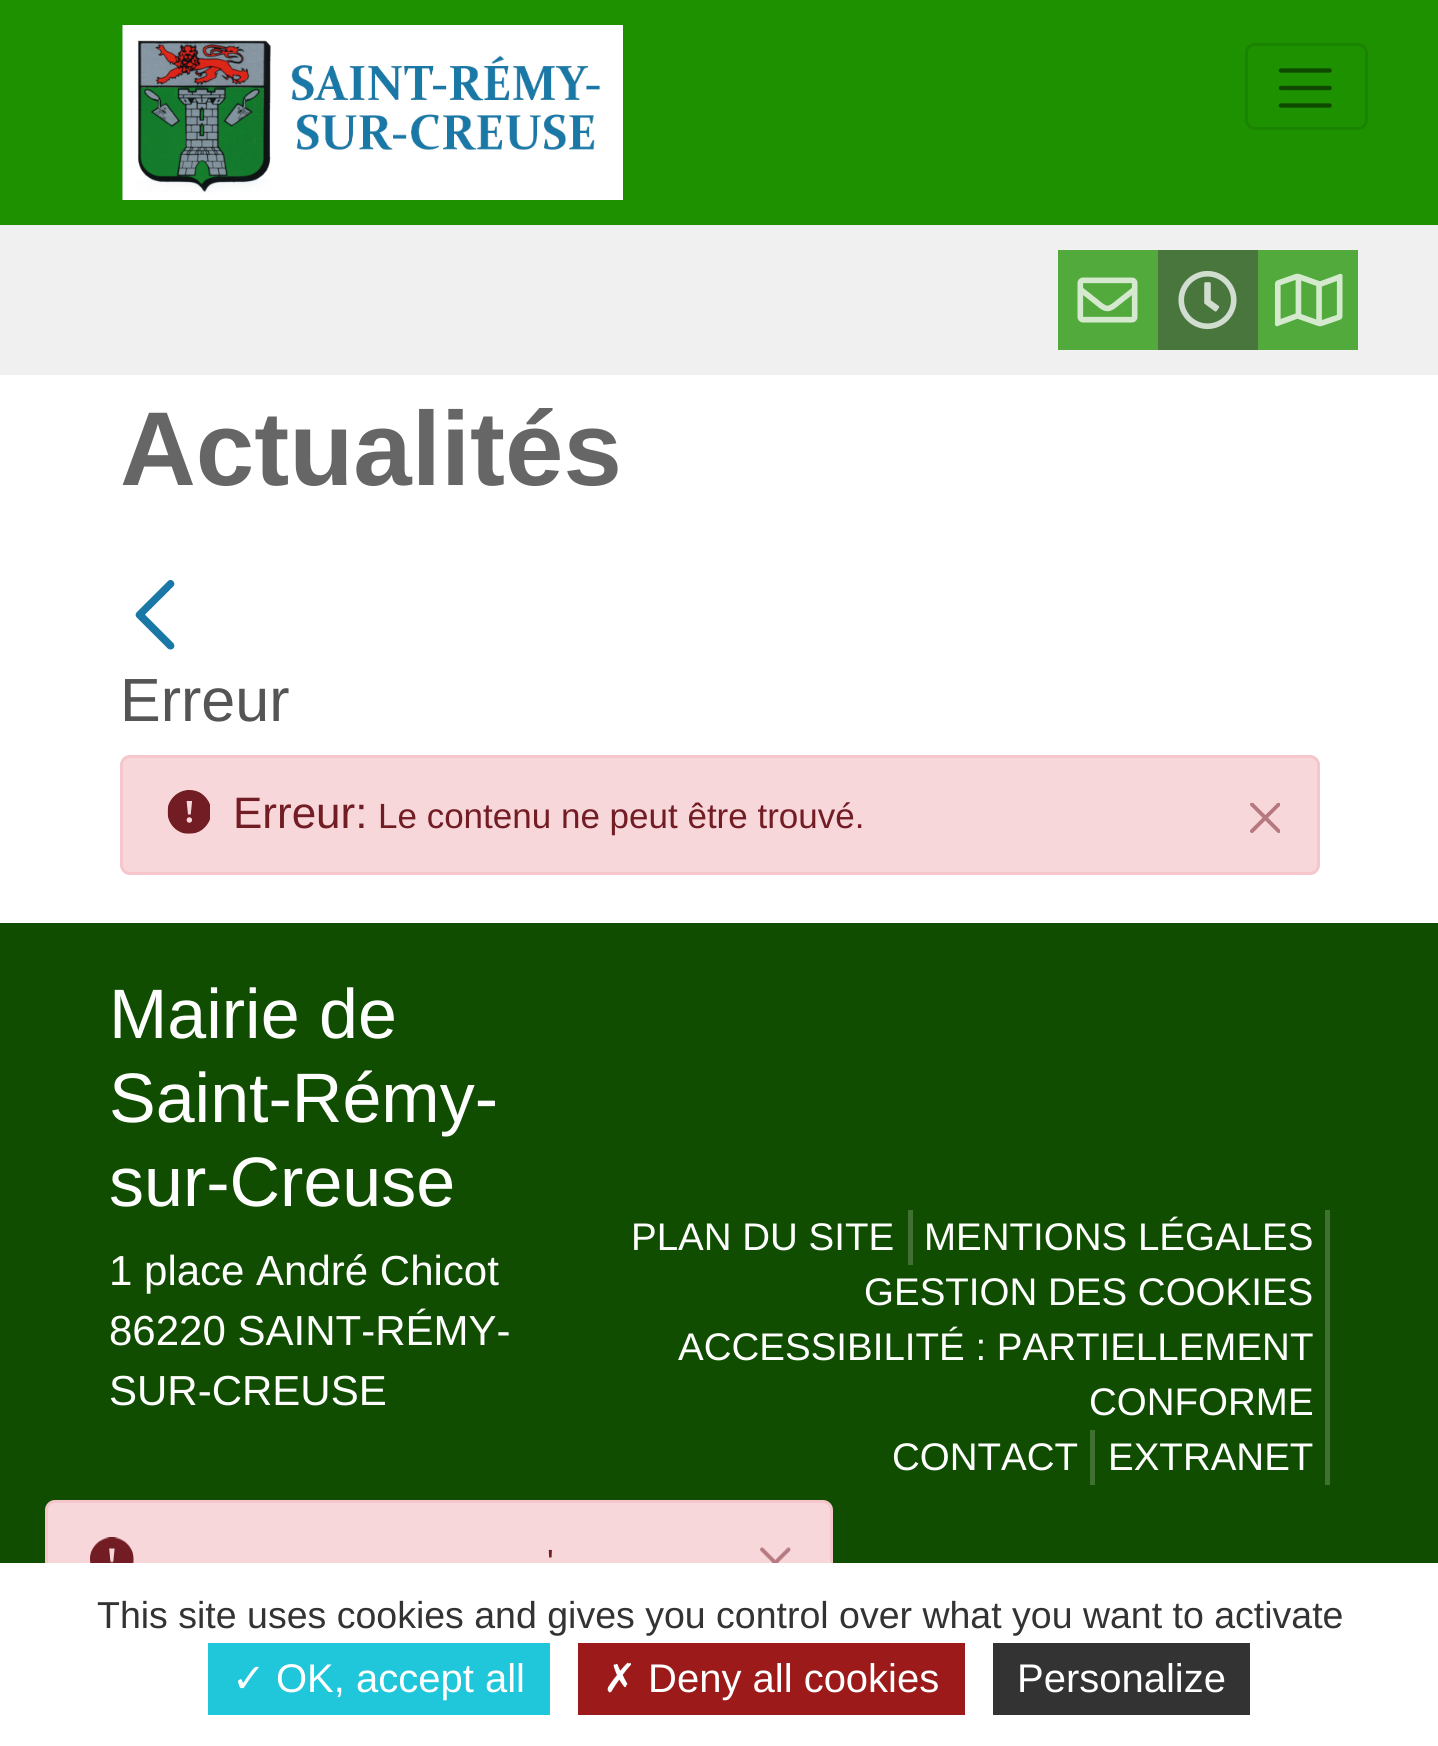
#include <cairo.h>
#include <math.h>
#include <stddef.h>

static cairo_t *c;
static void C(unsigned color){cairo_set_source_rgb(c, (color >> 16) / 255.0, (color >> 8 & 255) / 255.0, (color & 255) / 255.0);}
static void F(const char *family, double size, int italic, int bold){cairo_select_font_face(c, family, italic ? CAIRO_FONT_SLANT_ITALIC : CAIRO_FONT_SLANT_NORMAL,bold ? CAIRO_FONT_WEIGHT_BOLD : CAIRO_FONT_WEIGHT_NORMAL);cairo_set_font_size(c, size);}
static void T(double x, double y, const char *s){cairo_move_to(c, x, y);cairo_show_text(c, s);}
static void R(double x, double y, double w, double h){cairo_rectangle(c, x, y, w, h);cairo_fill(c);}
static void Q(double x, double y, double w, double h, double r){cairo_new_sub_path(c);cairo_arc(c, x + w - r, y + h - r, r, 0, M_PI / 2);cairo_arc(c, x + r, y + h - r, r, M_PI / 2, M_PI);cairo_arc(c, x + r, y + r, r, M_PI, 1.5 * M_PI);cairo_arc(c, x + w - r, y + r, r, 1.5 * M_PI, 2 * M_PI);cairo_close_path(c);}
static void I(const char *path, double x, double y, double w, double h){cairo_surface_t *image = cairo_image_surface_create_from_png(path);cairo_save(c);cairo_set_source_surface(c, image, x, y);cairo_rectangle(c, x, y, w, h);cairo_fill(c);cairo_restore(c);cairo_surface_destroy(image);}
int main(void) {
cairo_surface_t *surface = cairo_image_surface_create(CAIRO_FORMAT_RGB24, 1438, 1746);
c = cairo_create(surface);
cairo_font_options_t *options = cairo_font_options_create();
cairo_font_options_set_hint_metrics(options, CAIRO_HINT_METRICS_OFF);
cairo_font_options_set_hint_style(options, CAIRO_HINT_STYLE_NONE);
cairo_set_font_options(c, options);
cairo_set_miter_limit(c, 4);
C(0xffffff);
cairo_paint(c);
C(0x1d9100);
R(0,0,1438,225);
I("1.png",122,25,478,175);
C(0xffffff);
R(600,25,23,175);
Q(1246.5,44.5,120,84,8.5);
C(0x1a8300);
cairo_set_line_width(c,3);
cairo_stroke(c);
cairo_new_path(c);
cairo_move_to(c,1281,70.5);
cairo_line_to(c,1329.5,70.5);
cairo_move_to(c,1281,88);
cairo_line_to(c,1329.5,88);
cairo_move_to(c,1281,105.5);
cairo_line_to(c,1329.5,105.5);
C(0x0f4900);
cairo_set_line_width(c,4.4);
cairo_set_line_cap(c,CAIRO_LINE_CAP_ROUND);
cairo_stroke(c);
C(0xf0f0f0);
R(0,225,1438,150);
C(0x52a93c);
R(1058,250,100,100);
I("2.png",1077,277,61,46);
C(0x48763c);
R(1158,250,100,100);
I("3.png",1178,270,59,60);
C(0x52a93c);
R(1258,250,100,100);
I("4.png",1275,273,68,54);
F("Liberation Sans",105,0,1);
C(0x666666);
T(120,485,"Actualités");
I("5.png",135,580,40,70);
F("Liberation Sans",61,0,0);
C(0x555555);
T(120,721,"Erreur");
C(0xf8d7da);
Q(121.5,756.5,1197,117,8.5);
cairo_fill_preserve(c);
C(0xf5c6cb);
cairo_set_line_width(c,3);
cairo_set_line_cap(c,CAIRO_LINE_CAP_BUTT);
cairo_stroke(c);
I("6.png",167,790,43,44);
F("Liberation Sans",44,0,0);
C(0x721c24);
T(233,828,"Erreur:");
F("Liberation Sans",35,0,0);
T(378,828,"Le contenu ne peut être trouvé.");
I("7.png",1250,802,30,31);
C(0x104d00);
R(0,923,1438,640);
F("Liberation Sans",70,0,0);
C(0xffffff);
T(109,1038,"Mairie de");
T(109,1122,"Saint-Rémy-");
T(109,1206,"sur-Creuse");
F("Liberation Sans",42,0,0);
T(109,1285,"1 place André Chicot");
T(109,1345,"86220 SAINT-RÉMY-");
T(109,1405,"SUR-CREUSE");
C(0x407133);
R(908,1210,5,55);
F("Liberation Sans",38.5,0,0);
C(0xffffff);
T(631,1250,"PLAN DU SITE");
C(0x407133);
R(1325,1210,5,275);
C(0xffffff);
T(924,1250,"MENTIONS LÉGALES");
T(864,1305,"GESTION DES COOKIES");
T(678,1360,"ACCESSIBILITÉ : PARTIELLEMENT");
T(1089,1415,"CONFORME");
C(0x407133);
R(1090,1430,5,55);
C(0xffffff);
T(892,1470,"CONTACT");
T(1108,1470,"EXTRANET");
C(0xf8d7da);
Q(46.5,1501.5,785,167,8.5);
cairo_fill_preserve(c);
C(0xf5c6cb);
cairo_stroke(c);
I("8.png",90,1537,44,26);
F("Liberation Sans",35,0,0);
C(0x721c24);
T(547,1574,"'");
I("9.png",760,1547,31,16);
C(0xffffff);
R(45,1563,788,107);
F("Liberation Sans",37.5,0,0);
C(0x333333);
T(97,1628,"This site uses cookies and gives you control over what you want to activate");
C(0x20c6d9);
R(208,1643,342,72);
F("DejaVu Sans",40,0,0);
C(0xffffff);
T(232,1692,"✓");
F("Liberation Sans",40,0,0);
T(276,1692,"OK, accept all");
C(0x9c1a1a);
R(578,1643,387,72);
F("DejaVu Sans",40,0,0);
C(0xffffff);
T(603,1692,"✗");
F("Liberation Sans",40,0,0);
T(648,1692,"Deny all cookies");
C(0x333333);
R(993,1643,257,72);
C(0xffffff);
T(1017,1692,"Personalize");
cairo_surface_write_to_png(surface, "o.png");
cairo_font_options_destroy(options);
cairo_destroy(c);
cairo_surface_destroy(surface);
return 0;
}
